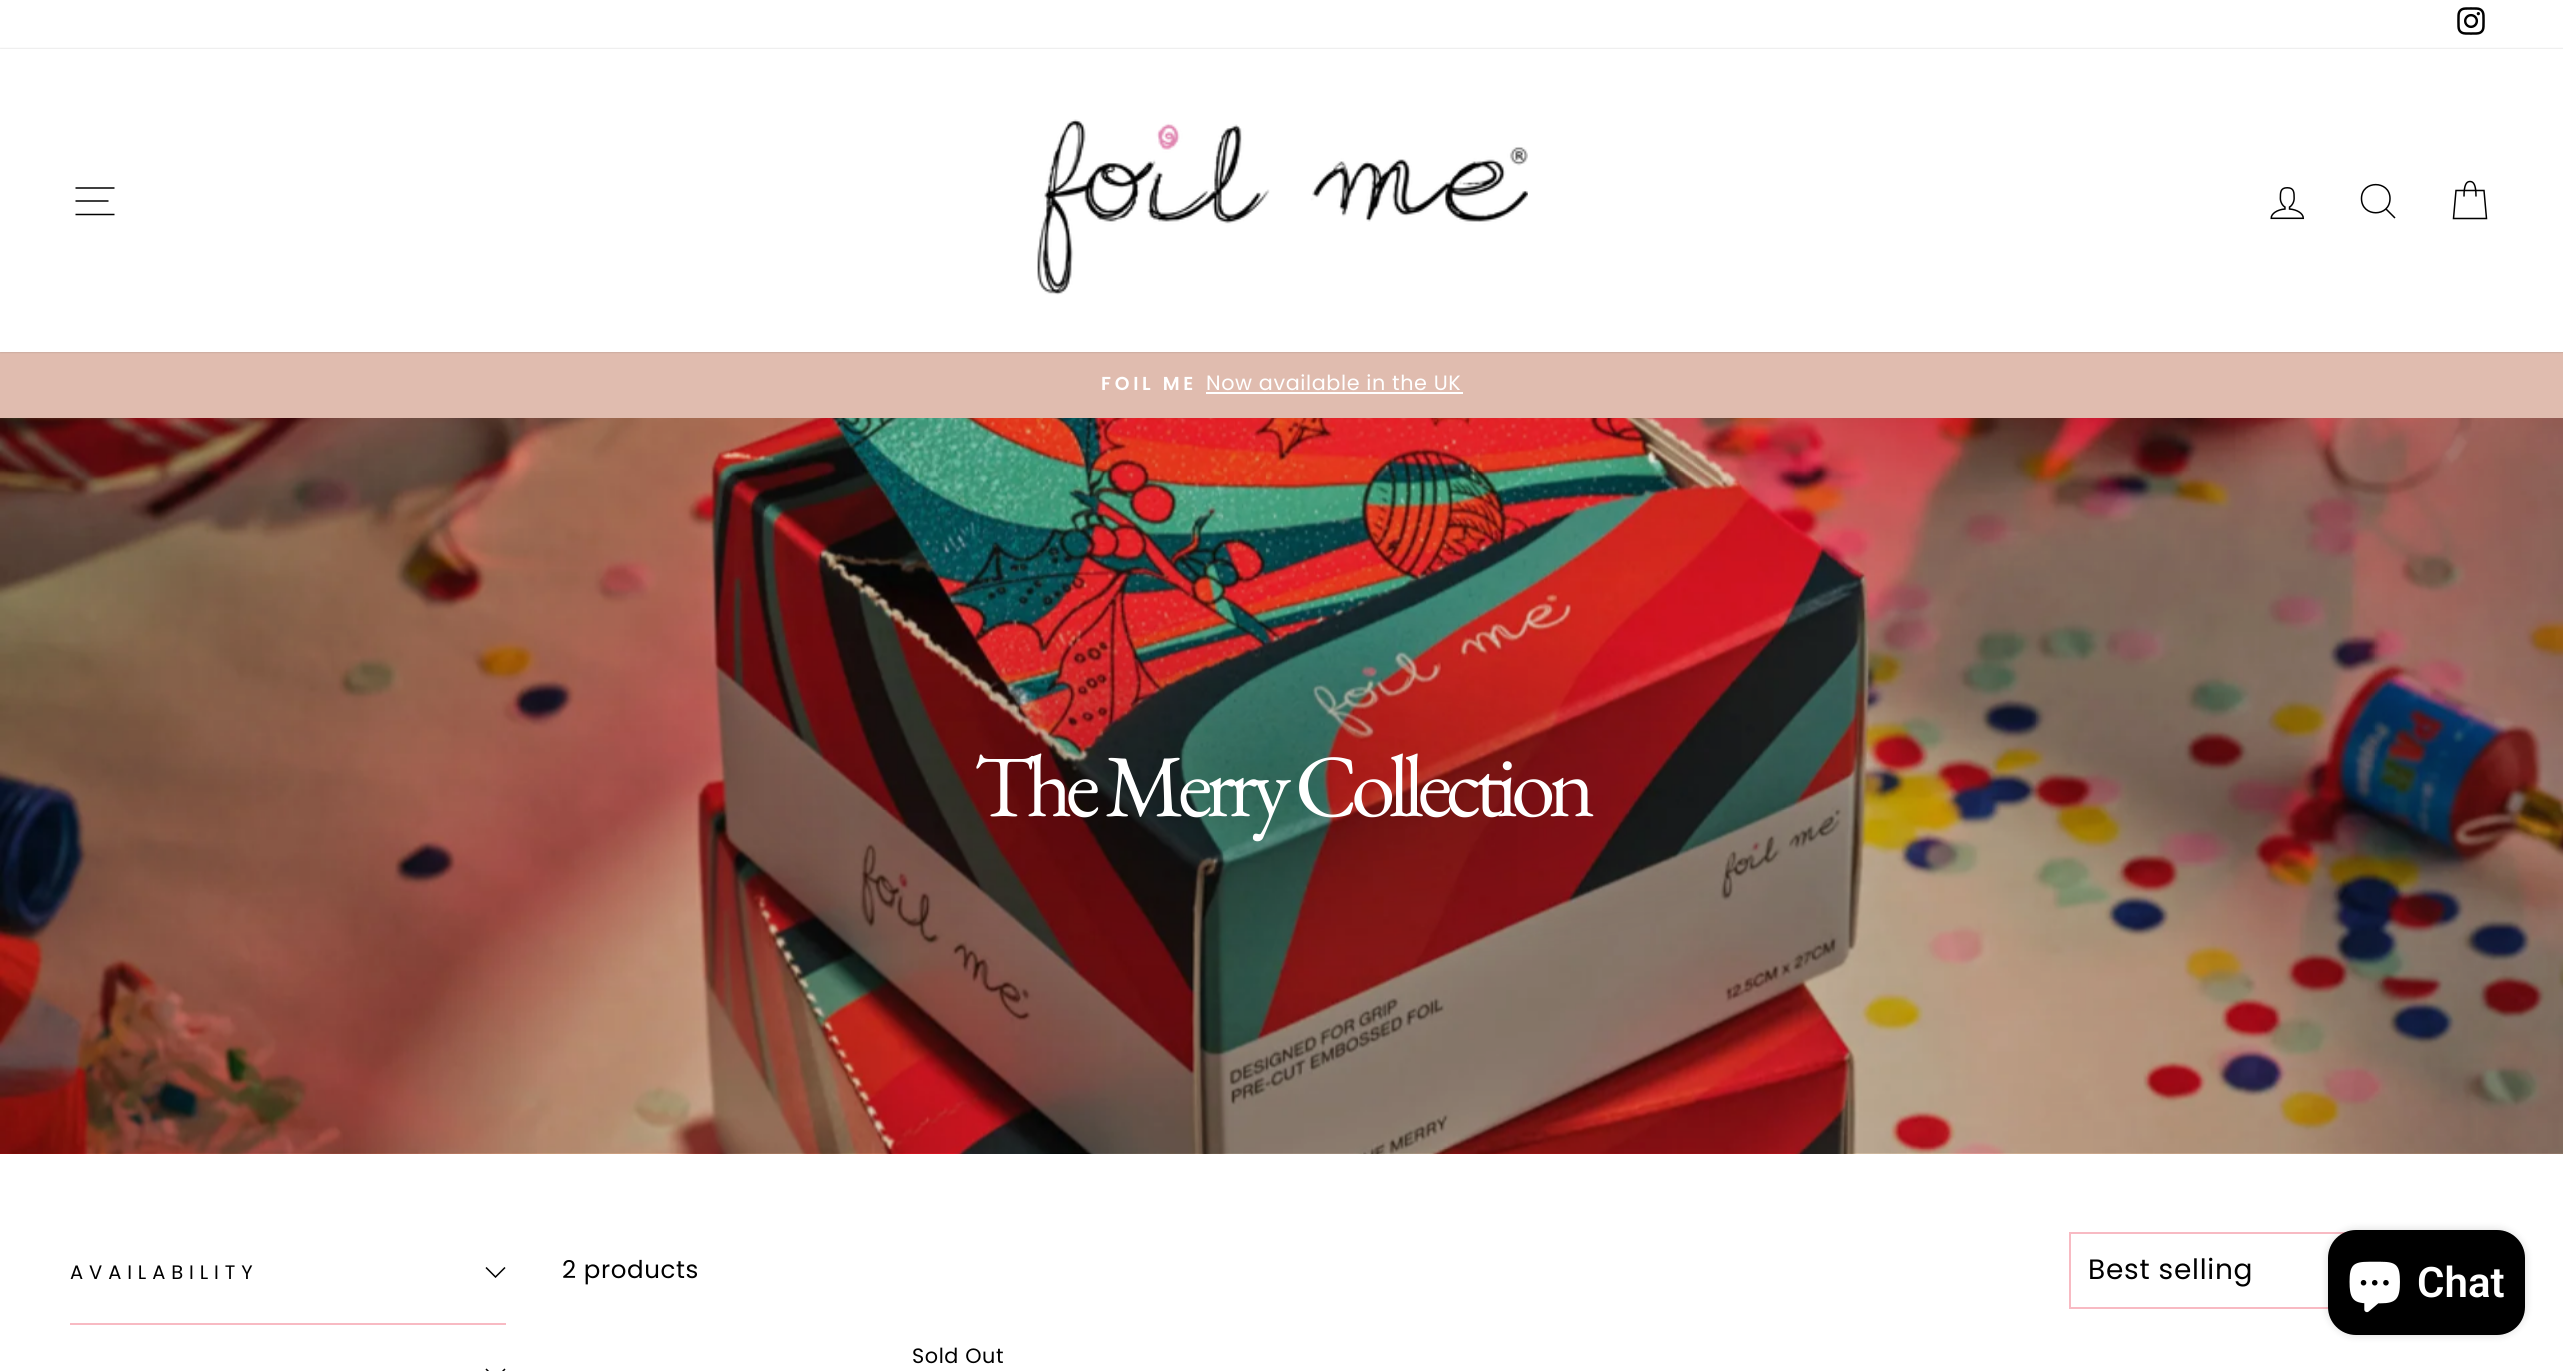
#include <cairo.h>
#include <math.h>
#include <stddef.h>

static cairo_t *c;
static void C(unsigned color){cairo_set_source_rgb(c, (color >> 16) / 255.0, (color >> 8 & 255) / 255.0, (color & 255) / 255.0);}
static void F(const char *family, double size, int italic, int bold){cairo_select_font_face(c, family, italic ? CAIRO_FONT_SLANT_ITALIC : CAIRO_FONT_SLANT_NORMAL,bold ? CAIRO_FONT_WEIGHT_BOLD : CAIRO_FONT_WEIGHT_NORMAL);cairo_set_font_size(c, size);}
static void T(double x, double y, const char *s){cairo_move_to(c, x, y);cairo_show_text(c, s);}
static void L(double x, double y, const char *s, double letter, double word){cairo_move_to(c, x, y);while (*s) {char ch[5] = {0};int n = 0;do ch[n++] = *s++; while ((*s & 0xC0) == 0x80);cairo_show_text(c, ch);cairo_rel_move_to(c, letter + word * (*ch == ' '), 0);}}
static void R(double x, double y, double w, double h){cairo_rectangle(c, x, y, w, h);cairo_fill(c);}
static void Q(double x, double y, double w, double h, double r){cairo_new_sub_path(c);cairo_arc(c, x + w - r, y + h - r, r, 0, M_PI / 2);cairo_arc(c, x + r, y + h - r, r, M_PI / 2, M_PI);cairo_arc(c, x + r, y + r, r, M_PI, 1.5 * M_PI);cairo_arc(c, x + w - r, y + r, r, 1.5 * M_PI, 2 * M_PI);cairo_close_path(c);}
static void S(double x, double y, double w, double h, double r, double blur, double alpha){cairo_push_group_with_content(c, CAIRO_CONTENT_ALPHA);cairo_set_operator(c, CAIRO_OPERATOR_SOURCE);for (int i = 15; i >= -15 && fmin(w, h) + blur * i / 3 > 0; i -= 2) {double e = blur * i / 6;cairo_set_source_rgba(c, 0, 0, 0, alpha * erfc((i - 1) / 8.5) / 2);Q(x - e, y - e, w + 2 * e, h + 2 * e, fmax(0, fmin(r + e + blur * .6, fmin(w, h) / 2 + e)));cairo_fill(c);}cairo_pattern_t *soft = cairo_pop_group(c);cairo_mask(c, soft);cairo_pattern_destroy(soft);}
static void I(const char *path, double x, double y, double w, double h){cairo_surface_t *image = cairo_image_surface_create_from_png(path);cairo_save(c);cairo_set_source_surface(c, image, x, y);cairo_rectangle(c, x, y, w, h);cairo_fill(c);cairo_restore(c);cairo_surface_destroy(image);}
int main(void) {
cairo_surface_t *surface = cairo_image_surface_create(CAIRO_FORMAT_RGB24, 2563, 1371);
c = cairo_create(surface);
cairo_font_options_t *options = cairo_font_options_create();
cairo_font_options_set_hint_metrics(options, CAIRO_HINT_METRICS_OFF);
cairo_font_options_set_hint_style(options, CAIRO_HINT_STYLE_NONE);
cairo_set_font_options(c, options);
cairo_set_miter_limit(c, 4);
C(0xffffff);
cairo_paint(c);
I("1.png",2457,7,28,28);
C(0xe0bcaf);
R(0,352,2563,66);
C(0x000000);
S(0,49,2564,303,0,1,.2);
C(0xffffff);
R(0,49,2563,303);
cairo_new_path(c);
cairo_move_to(c,75.5,188);
cairo_line_to(c,114.5,188);
cairo_move_to(c,75.5,201);
cairo_line_to(c,108.5,201);
cairo_move_to(c,75.5,214.5);
cairo_line_to(c,114.5,214.5);
C(0x000000);
cairo_set_line_width(c,1.5);
cairo_stroke(c);
I("2.png",1037,119,491,176);
I("3.png",2270,187,35,33);
cairo_new_path(c);
cairo_move_to(c,2390,198.5);
cairo_curve_to(c,2390,217.5,2361.5,217.5,2361.5,198.5);
cairo_curve_to(c,2361.5,180,2390,180,2390,198.5);
cairo_close_path(c);
cairo_move_to(c,2395,218);
cairo_line_to(c,2386,209);
cairo_stroke(c);
cairo_new_path(c);
cairo_move_to(c,2464,196.5);
cairo_curve_to(c,2464,184.5,2466.5,181.5,2470,181.5);
cairo_curve_to(c,2473.5,181.5,2476,184.5,2476,196.5);
cairo_move_to(c,2456,190.5);
cairo_line_to(c,2484,190.5);
cairo_line_to(c,2486.5,218.5);
cairo_line_to(c,2453.5,218.5);
cairo_close_path(c);
cairo_stroke(c);
F("Poppins SemiBold",18.75,0,0);
C(0xffffff);
L(1101,390,"FOIL ME",3.75,0);
F("Poppins",20.75,0,0);
L(1206,390,"Now available in the UK",.6,0);
R(1206,392,257,2);
I("4.png",0,418,2563,736);
F("EB Garamond",88.75,0,0);
L(974,816,"The Merry Collection",-6.7,0);
F("Poppins",19.5,0,0);
C(0x000000);
L(70,1279,"AVAILABILITY",5.9,0);
cairo_new_path(c);
cairo_move_to(c,486,1267.5);
cairo_line_to(c,495.5,1277);
cairo_line_to(c,505,1267.5);
cairo_stroke(c);
C(0xf8bac3);
R(70,1323,436,2);
cairo_new_path(c);
cairo_move_to(c,486,1369);
cairo_line_to(c,495.5,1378.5);
cairo_line_to(c,505,1369);
C(0x000000);
cairo_stroke(c);
F("Poppins",24.5,0,0);
L(562,1278,"2 products",.6,0);
cairo_rectangle(c,2070,1233,423,75);
C(0xf8bac3);
cairo_set_line_width(c,2);
cairo_stroke(c);
F("Poppins",28,0,0);
C(0x000000);
L(2088,1279,"Best selling",.75,0);
F("Poppins",20.75,0,0);
L(912,1363,"Sold Out",.6,0);
C(0x000000);
S(2328,1230,197,105,28,4.5,.15);
C(0x000000);
Q(2328,1230,197,105,28);
cairo_fill(c);
I("5.png",2349,1261,51,52);
F("Roboto SemiBold",42,0,0);
C(0xffffff);
T(2417,1297,"Chat");
cairo_surface_write_to_png(surface, "o.png");
cairo_font_options_destroy(options);
cairo_destroy(c);
cairo_surface_destroy(surface);
return 0;
}
